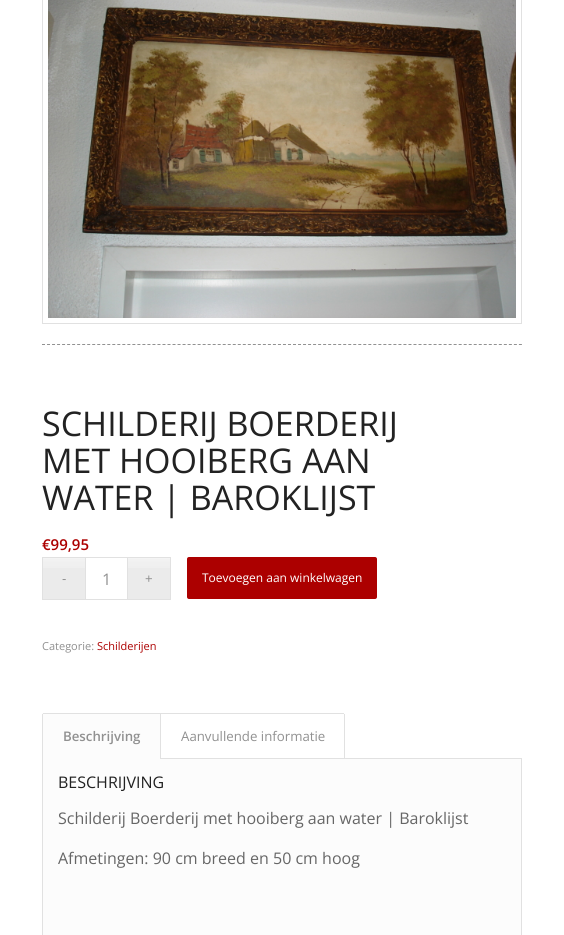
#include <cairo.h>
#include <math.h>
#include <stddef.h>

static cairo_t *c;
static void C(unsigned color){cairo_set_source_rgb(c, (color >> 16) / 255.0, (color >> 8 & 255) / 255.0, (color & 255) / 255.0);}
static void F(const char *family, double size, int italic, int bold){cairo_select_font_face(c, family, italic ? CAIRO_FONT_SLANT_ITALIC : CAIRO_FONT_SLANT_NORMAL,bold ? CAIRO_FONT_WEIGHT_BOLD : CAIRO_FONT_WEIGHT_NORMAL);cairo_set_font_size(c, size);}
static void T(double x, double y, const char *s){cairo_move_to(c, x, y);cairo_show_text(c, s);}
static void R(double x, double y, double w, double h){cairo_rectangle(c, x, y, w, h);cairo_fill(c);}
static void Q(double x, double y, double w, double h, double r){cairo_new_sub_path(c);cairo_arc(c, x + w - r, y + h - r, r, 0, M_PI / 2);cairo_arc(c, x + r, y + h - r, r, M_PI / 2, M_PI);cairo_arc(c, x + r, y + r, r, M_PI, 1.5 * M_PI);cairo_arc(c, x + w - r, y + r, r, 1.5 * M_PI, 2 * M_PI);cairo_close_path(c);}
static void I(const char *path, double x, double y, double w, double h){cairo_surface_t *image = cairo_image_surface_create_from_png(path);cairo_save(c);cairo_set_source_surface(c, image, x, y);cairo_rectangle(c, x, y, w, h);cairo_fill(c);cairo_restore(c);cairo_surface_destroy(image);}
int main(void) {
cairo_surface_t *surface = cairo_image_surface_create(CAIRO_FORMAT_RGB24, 564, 935);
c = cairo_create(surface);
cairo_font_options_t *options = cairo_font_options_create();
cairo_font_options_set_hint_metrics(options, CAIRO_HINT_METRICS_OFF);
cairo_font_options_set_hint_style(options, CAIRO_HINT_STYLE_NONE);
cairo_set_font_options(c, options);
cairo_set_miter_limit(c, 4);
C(0xffffff);
cairo_paint(c);
cairo_rectangle(c,42.5,-.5,479,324);
C(0xe1e1e1);
cairo_set_line_width(c,1);
cairo_stroke(c);
I("1.png",48,0,468,318);
cairo_new_path(c);
cairo_move_to(c,42,344.5);
cairo_line_to(c,522,344.5);
C(0x919191);
cairo_set_dash(c,(double[]){3,2.02},2,0);
cairo_stroke(c);
F("Open Sans",34,0,0);
C(0x222222);
T(42,436,"SCHILDERIJ BOERDERIJ");
T(42,473,"MET HOOIBERG AAN");
T(42,510,"WATER | BAROKLIJST");
F("Open Sans SemiBold",15,0,0);
C(0xac0000);
T(42,550,"€99,95");
C(0xebebeb);
R(43,558,42,41);
I("2.png",43,558,42,10);
R(128,558,42,41);
I("2.png",128,558,42,10);
F("Liberation Sans",13,0,0);
C(0x919191);
T(62,583,"-");
C(0xe1e1e1);
R(42,557,43,1);
R(42,599,43,1);
R(42,557,1,43);
cairo_rectangle(c,85.5,557.5,42,42);
cairo_set_dash(c,NULL,0,0);
cairo_stroke(c);
F("Open Sans",16,0,0);
C(0x919191);
T(102,585,"1");
F("Liberation Sans",13,0,0);
T(145,583,"+");
C(0xe1e1e1);
R(128,557,43,1);
R(170,557,1,43);
R(128,599,43,1);
C(0xac0000);
Q(187,557,190,42,2);
cairo_fill(c);
F("Open Sans",12,0,0);
C(0xffffff);
T(202,582,"Toevoegen aan winkelwagen");
F("Open Sans",11,0,0);
C(0x919191);
T(42,650,"Categorie:");
C(0xac0000);
T(97,650,"Schilderijen");
C(0xfcfcfc);
cairo_rectangle(c,42.5,758.5,479,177);
cairo_fill_preserve(c);
C(0xe1e1e1);
cairo_stroke(c);
C(0xfcfcfc);
R(42,713,118,46);
C(0xe1e1e1);
R(160,713,184,1);
R(43,713,118,1);
R(160,713,1,46);
R(42,714,1,45);
F("Open Sans SemiBold",13.25,0,0);
C(0x919191);
T(63,741,"Beschrijving");
C(0xe1e1e1);
R(344,714,1,45);
F("Open Sans",13.25,0,0);
C(0x919191);
T(181,741,"Aanvullende informatie");
F("Open Sans",16,0,0);
C(0x222222);
T(58,788,"BESCHRIJVING");
C(0x666666);
T(58,824,"Schilderij Boerderij met hooiberg aan water | Baroklijst");
T(58,864,"Afmetingen: 90 cm breed en 50 cm hoog");
cairo_surface_write_to_png(surface, "o.png");
cairo_font_options_destroy(options);
cairo_destroy(c);
cairo_surface_destroy(surface);
return 0;
}
